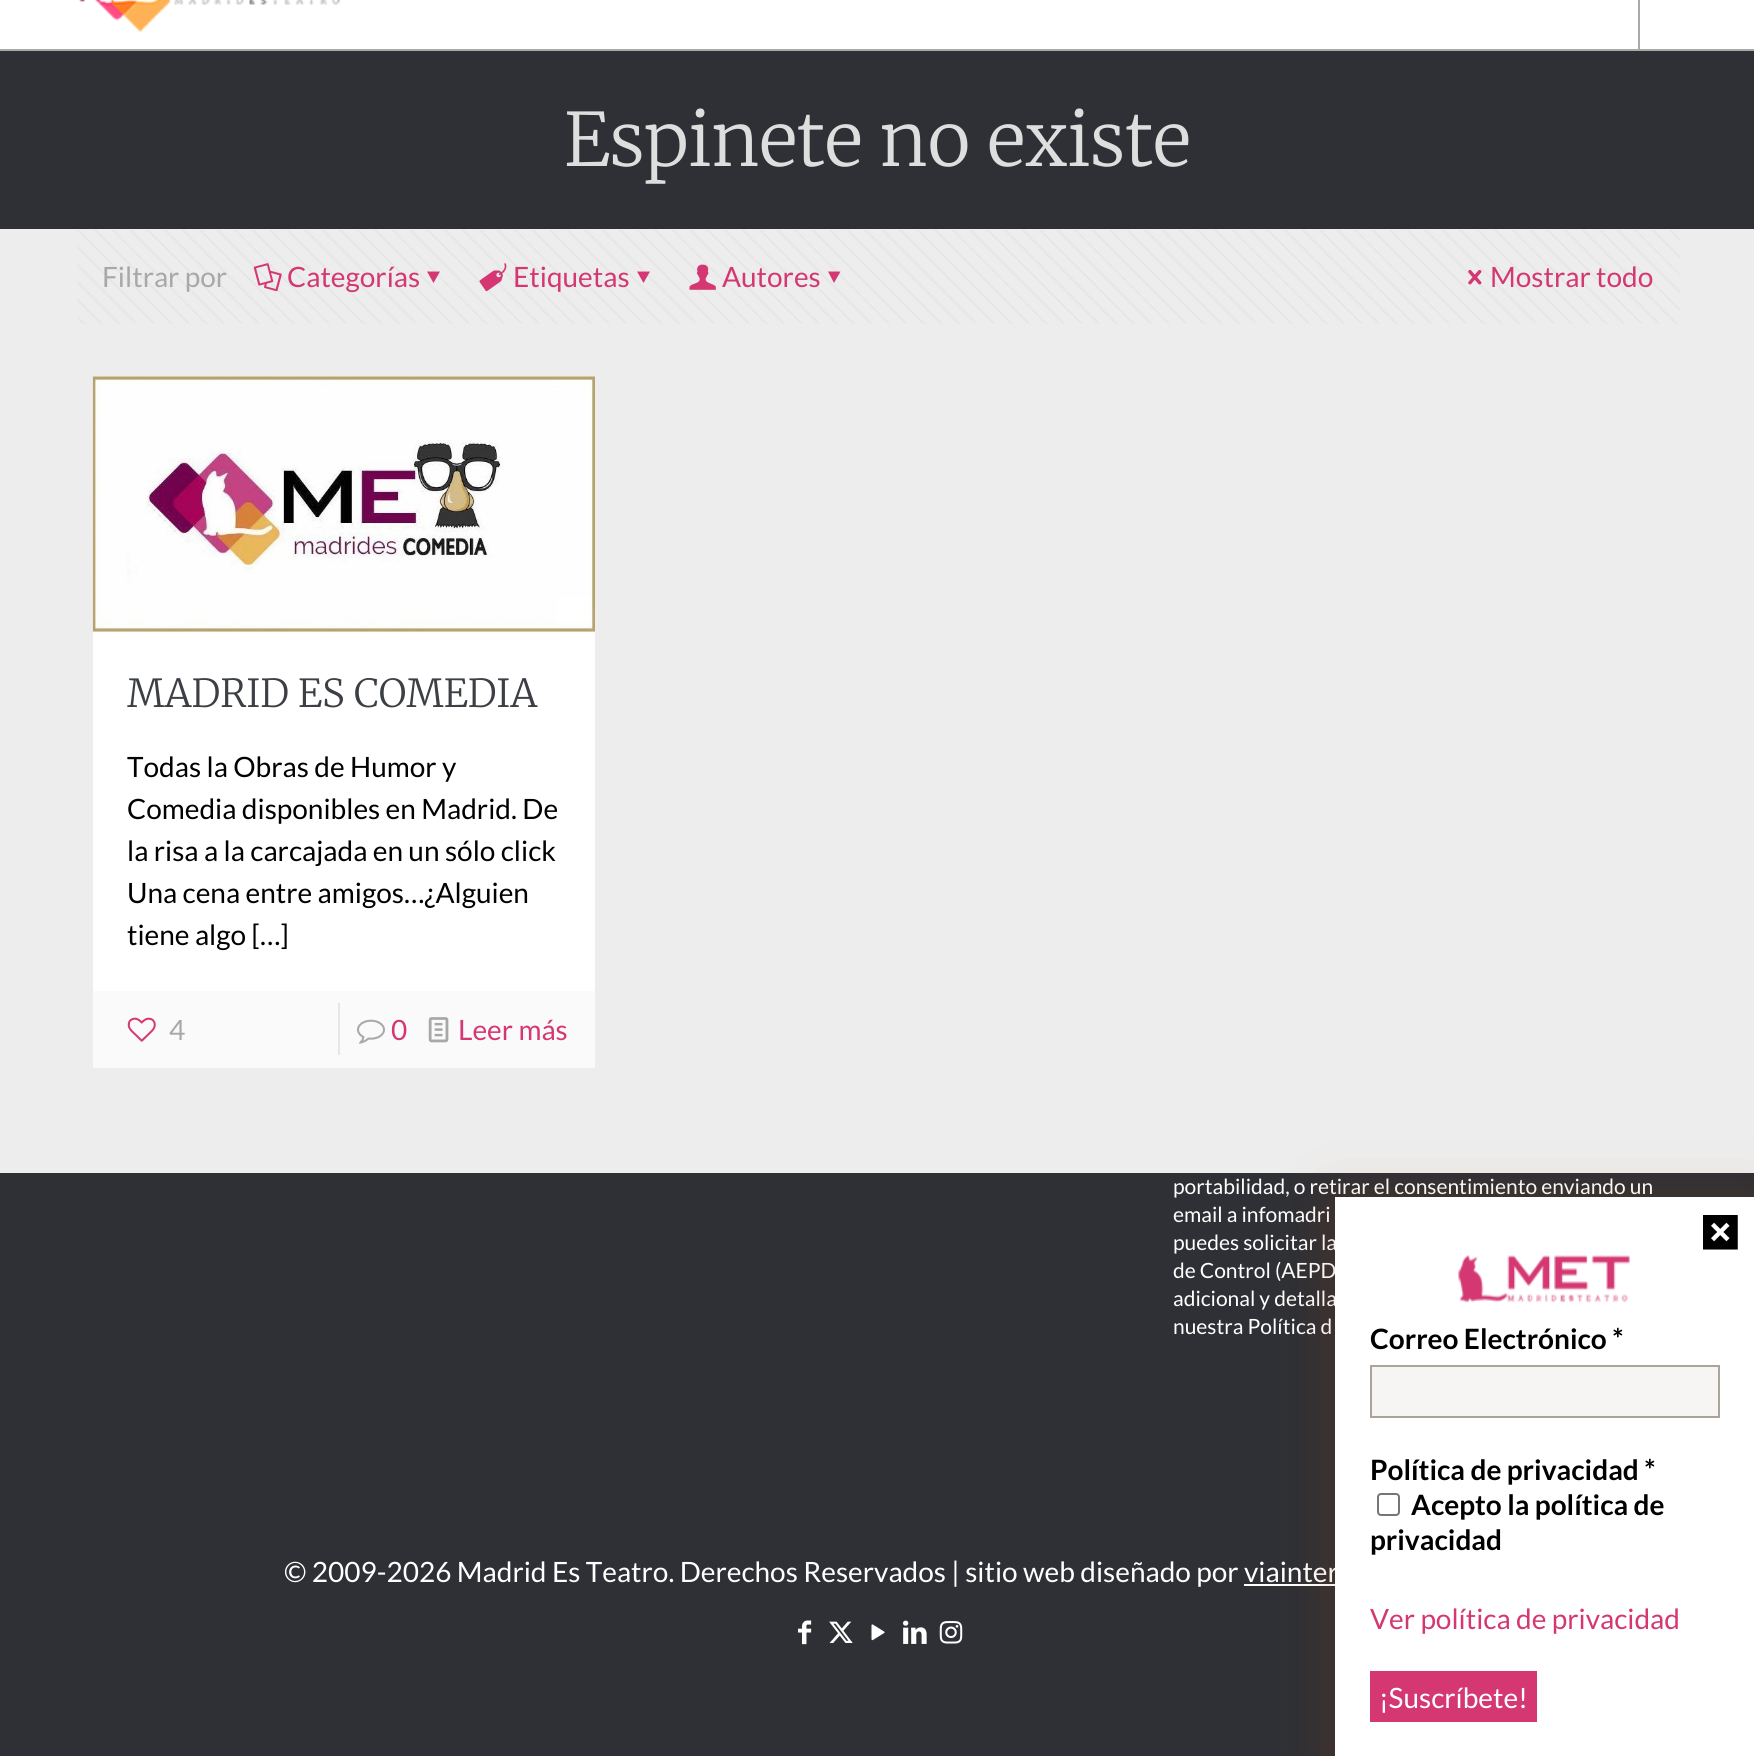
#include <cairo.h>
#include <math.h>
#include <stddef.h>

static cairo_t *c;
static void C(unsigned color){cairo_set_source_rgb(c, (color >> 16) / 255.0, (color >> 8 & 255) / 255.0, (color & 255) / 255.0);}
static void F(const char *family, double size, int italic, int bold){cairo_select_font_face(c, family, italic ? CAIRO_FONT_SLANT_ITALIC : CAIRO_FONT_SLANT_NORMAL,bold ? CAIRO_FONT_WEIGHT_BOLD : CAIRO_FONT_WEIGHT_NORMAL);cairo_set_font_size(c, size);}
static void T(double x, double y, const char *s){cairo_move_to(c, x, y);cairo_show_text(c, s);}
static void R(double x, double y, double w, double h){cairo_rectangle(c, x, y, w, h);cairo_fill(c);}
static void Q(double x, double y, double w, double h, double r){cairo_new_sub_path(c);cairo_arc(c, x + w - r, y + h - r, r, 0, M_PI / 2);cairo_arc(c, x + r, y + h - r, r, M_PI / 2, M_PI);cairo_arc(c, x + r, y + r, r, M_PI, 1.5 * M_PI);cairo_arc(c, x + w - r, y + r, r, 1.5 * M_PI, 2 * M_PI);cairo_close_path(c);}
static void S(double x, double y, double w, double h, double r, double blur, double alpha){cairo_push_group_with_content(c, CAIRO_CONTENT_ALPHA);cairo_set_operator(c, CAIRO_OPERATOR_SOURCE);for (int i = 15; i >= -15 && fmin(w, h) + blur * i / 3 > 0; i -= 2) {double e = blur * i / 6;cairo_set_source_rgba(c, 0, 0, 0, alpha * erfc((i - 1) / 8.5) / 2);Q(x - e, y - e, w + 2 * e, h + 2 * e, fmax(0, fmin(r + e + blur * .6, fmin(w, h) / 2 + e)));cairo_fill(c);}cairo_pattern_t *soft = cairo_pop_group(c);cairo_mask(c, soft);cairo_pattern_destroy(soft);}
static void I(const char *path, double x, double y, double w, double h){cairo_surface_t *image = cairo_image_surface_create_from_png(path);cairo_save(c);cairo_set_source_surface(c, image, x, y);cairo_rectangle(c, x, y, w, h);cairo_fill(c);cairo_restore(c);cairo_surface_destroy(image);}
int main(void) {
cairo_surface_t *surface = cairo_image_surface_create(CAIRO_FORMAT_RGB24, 1754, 1756);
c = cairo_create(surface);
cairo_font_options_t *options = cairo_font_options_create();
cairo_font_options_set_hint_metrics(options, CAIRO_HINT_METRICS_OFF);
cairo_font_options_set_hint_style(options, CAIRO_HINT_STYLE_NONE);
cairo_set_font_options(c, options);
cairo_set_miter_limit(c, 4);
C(0x2e3035);
cairo_paint(c);
C(0xffffff);
R(0,0,1754,49);
C(0xaba9a5);
R(0,49,1754,2);
I("1.png",79,0,262,32);
R(1638,0,2,49);
F("Merriweather Light",73.5,0,0);
C(0xdedede);
T(564,166,"Espinete no existe");
C(0xededed);
R(0,229,1754,944);
I("2.png",77,230,1603,94);
F("Lato",28,0,0);
C(0xa8a8a8);
T(102,287,"Filtrar por");
I("3.png",253,263,29,29);
C(0xd43771);
T(287,287,"Categorías");
cairo_new_path(c);
cairo_move_to(c,440,271.5);
cairo_line_to(c,433.5,283);
cairo_line_to(c,427,271.5);
cairo_close_path(c);
cairo_fill(c);
I("4.png",479,263,28,29);
T(513,287,"Etiquetas");
cairo_new_path(c);
cairo_move_to(c,650,271.5);
cairo_line_to(c,643.5,283);
cairo_line_to(c,637,271.5);
cairo_close_path(c);
cairo_fill(c);
I("5.png",689,264,27,26);
T(722,287,"Autores");
cairo_new_path(c);
cairo_move_to(c,840.5,271.5);
cairo_line_to(c,834,283);
cairo_line_to(c,828,271.5);
cairo_close_path(c);
cairo_fill(c);
I("6.png",1468,269,14,16);
T(1490,287,"Mostrar todo");
C(0xffffff);
R(93,376,502,615);
I("7.png",92,376,503,256);
F("Merriweather Light",38.5,0,0);
C(0x3c3f44);
T(127,707,"MADRID ES COMEDIA");
F("Lato",28,0,0);
C(0x000000);
T(127,777,"Todas la Obras de Humor y");
T(127,819,"Comedia disponibles en Madrid. De");
T(127,861,"la risa a la carcajada en un sólo click");
T(127,903,"Una cena entre amigos…¿Alguien");
T(127,945,"tiene algo […]");
C(0xfafafa);
R(93,991,502,77);
I("8.png",127,1017,29,25);
C(0xa8a8a8);
T(169,1040,"4");
C(0xe6e6e6);
R(338,1003,2,52);
I("9.png",357,1019,28,25);
C(0xd43771);
T(391,1040,"0");
I("10.png",428,1017,21,26);
T(458,1040,"Leer más");
F("Lato",21,0,0);
C(0xffffff);
T(1173,1194,"portabilidad, o retirar el consentimiento enviando un");
T(1173,1222,"email a infomadri");
T(1173,1250,"puedes solicitar la");
T(1173,1278,"de Control (AEPD");
T(1173,1306,"adicional y detalla");
T(1173,1334,"nuestra Política d");
F("Lato",28,0,0);
T(284,1582,"© 2009-2026 Madrid Es Teatro. Derechos Reservados | sitio web diseñado por viainter");
R(1244,1584,91,2);
I("11.png",798,1620,14,25);
I("12.png",829,1621,24,22);
I("13.png",871,1624,14,17);
I("14.png",903,1620,24,24);
I("15.png",939,1621,24,23);
C(0xc34102);
S(1335,1204,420,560,0,30.5,.2);
C(0xffffff);
R(1335,1197,419,559);
I("16.png",1703,1215,35,35);
I("17.png",1458,1255,172,48);
F("Lato",28,0,1);
C(0x000000);
T(1370,1349,"Correo Electrónico *");
C(0xf6f5f3);
cairo_rectangle(c,1371,1366,348,51);
cairo_fill_preserve(c);
C(0xaba598);
cairo_stroke(c);
C(0x000000);
T(1370,1480,"Política de privacidad *");
Q(1378,1494,21,21,3);
C(0x767676);
cairo_stroke(c);
C(0x000000);
T(1411,1515,"Acepto la política de");
T(1370,1550,"privacidad");
F("Lato",28,0,0);
C(0xd43771);
T(1370,1629,"Ver política de privacidad");
R(1370,1671,167,51);
C(0xffffff);
T(1379,1708,"¡Suscríbete!");
cairo_surface_write_to_png(surface, "o.png");
cairo_font_options_destroy(options);
cairo_destroy(c);
cairo_surface_destroy(surface);
return 0;
}
